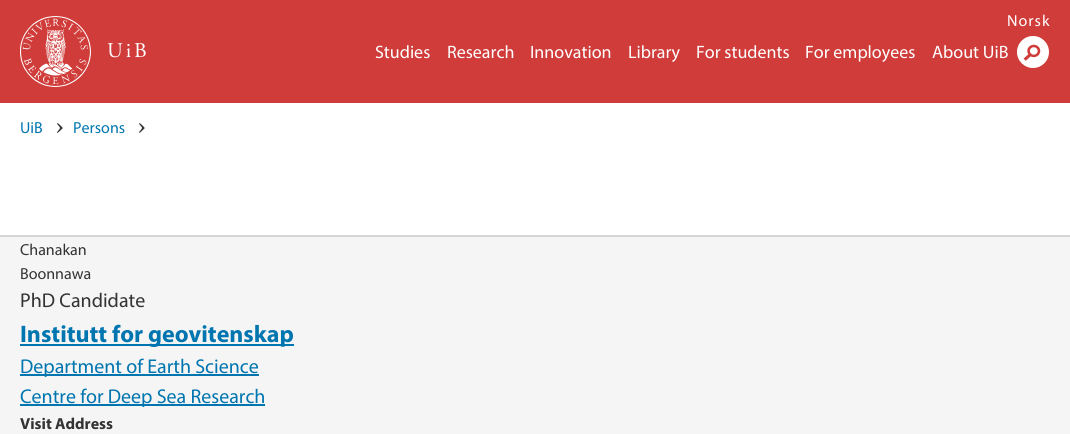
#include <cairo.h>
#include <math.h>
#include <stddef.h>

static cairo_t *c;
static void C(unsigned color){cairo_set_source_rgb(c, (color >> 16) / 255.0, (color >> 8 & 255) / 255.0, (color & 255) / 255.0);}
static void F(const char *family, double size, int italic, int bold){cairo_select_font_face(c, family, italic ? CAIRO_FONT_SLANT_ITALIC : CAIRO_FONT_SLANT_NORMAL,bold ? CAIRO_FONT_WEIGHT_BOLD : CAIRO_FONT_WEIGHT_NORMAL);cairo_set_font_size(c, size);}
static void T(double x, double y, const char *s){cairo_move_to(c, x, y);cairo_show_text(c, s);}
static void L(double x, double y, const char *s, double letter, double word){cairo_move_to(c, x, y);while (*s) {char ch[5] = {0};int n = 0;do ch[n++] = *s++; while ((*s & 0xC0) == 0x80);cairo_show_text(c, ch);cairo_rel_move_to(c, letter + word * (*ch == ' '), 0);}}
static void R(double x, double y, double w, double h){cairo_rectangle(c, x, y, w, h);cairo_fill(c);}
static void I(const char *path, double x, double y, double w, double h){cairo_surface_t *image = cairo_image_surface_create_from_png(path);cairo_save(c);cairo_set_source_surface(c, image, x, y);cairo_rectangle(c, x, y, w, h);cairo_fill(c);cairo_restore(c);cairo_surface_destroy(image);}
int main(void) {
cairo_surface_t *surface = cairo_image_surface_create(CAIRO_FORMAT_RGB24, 1070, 434);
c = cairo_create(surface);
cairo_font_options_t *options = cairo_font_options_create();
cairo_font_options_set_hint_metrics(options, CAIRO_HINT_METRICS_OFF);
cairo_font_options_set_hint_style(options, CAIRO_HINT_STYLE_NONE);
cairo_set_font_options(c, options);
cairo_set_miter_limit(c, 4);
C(0xffffff);
cairo_paint(c);
C(0xcf3c3a);
R(0,0,1070,103);
I("1.png",20,16,71,71);
F("Adobe Garamond",21,0,0);
C(0xffffff);
L(107,57,"UiB",3,0);
F("Myriad",16,0,0);
L(1007,26,"Norsk",1,0);
F("Myriad",18,0,0);
T(375,58,"Studies");
T(447,58,"Research");
T(530,58,"Innovation");
T(628,58,"Library");
T(696,58,"For students");
T(805,58,"For employees");
T(932,58,"About UiB");
I("2.png",1017,36,32,32);
F("Myriad",16,0,0);
C(0x0075af);
T(20,133,"UiB");
I("3.png",57,123,6,10);
T(73,133,"Persons");
I("3.png",139,123,6,10);
C(0xf5f5f5);
R(0,237,1070,197);
C(0xd5d5d5);
R(0,235,1070,2);
C(0x333333);
T(20,255,"Chanakan");
T(20,279,"Boonnawa");
F("Myriad",20,0,0);
T(20,307,"PhD Candidate");
C(0x0075af);
R(20,344,274,2);
F("Myriad",24,0,1);
T(20,342,"Institutt for geovitenskap");
R(20,374,239,2);
F("Myriad",20,0,0);
T(20,373,"Department of Earth Science");
R(20,404,245,2);
T(20,403,"Centre for Deep Sea Research");
F("Myriad",16,0,1);
C(0x333333);
T(20,429,"Visit Address");
cairo_surface_write_to_png(surface, "o.png");
cairo_font_options_destroy(options);
cairo_destroy(c);
cairo_surface_destroy(surface);
return 0;
}
